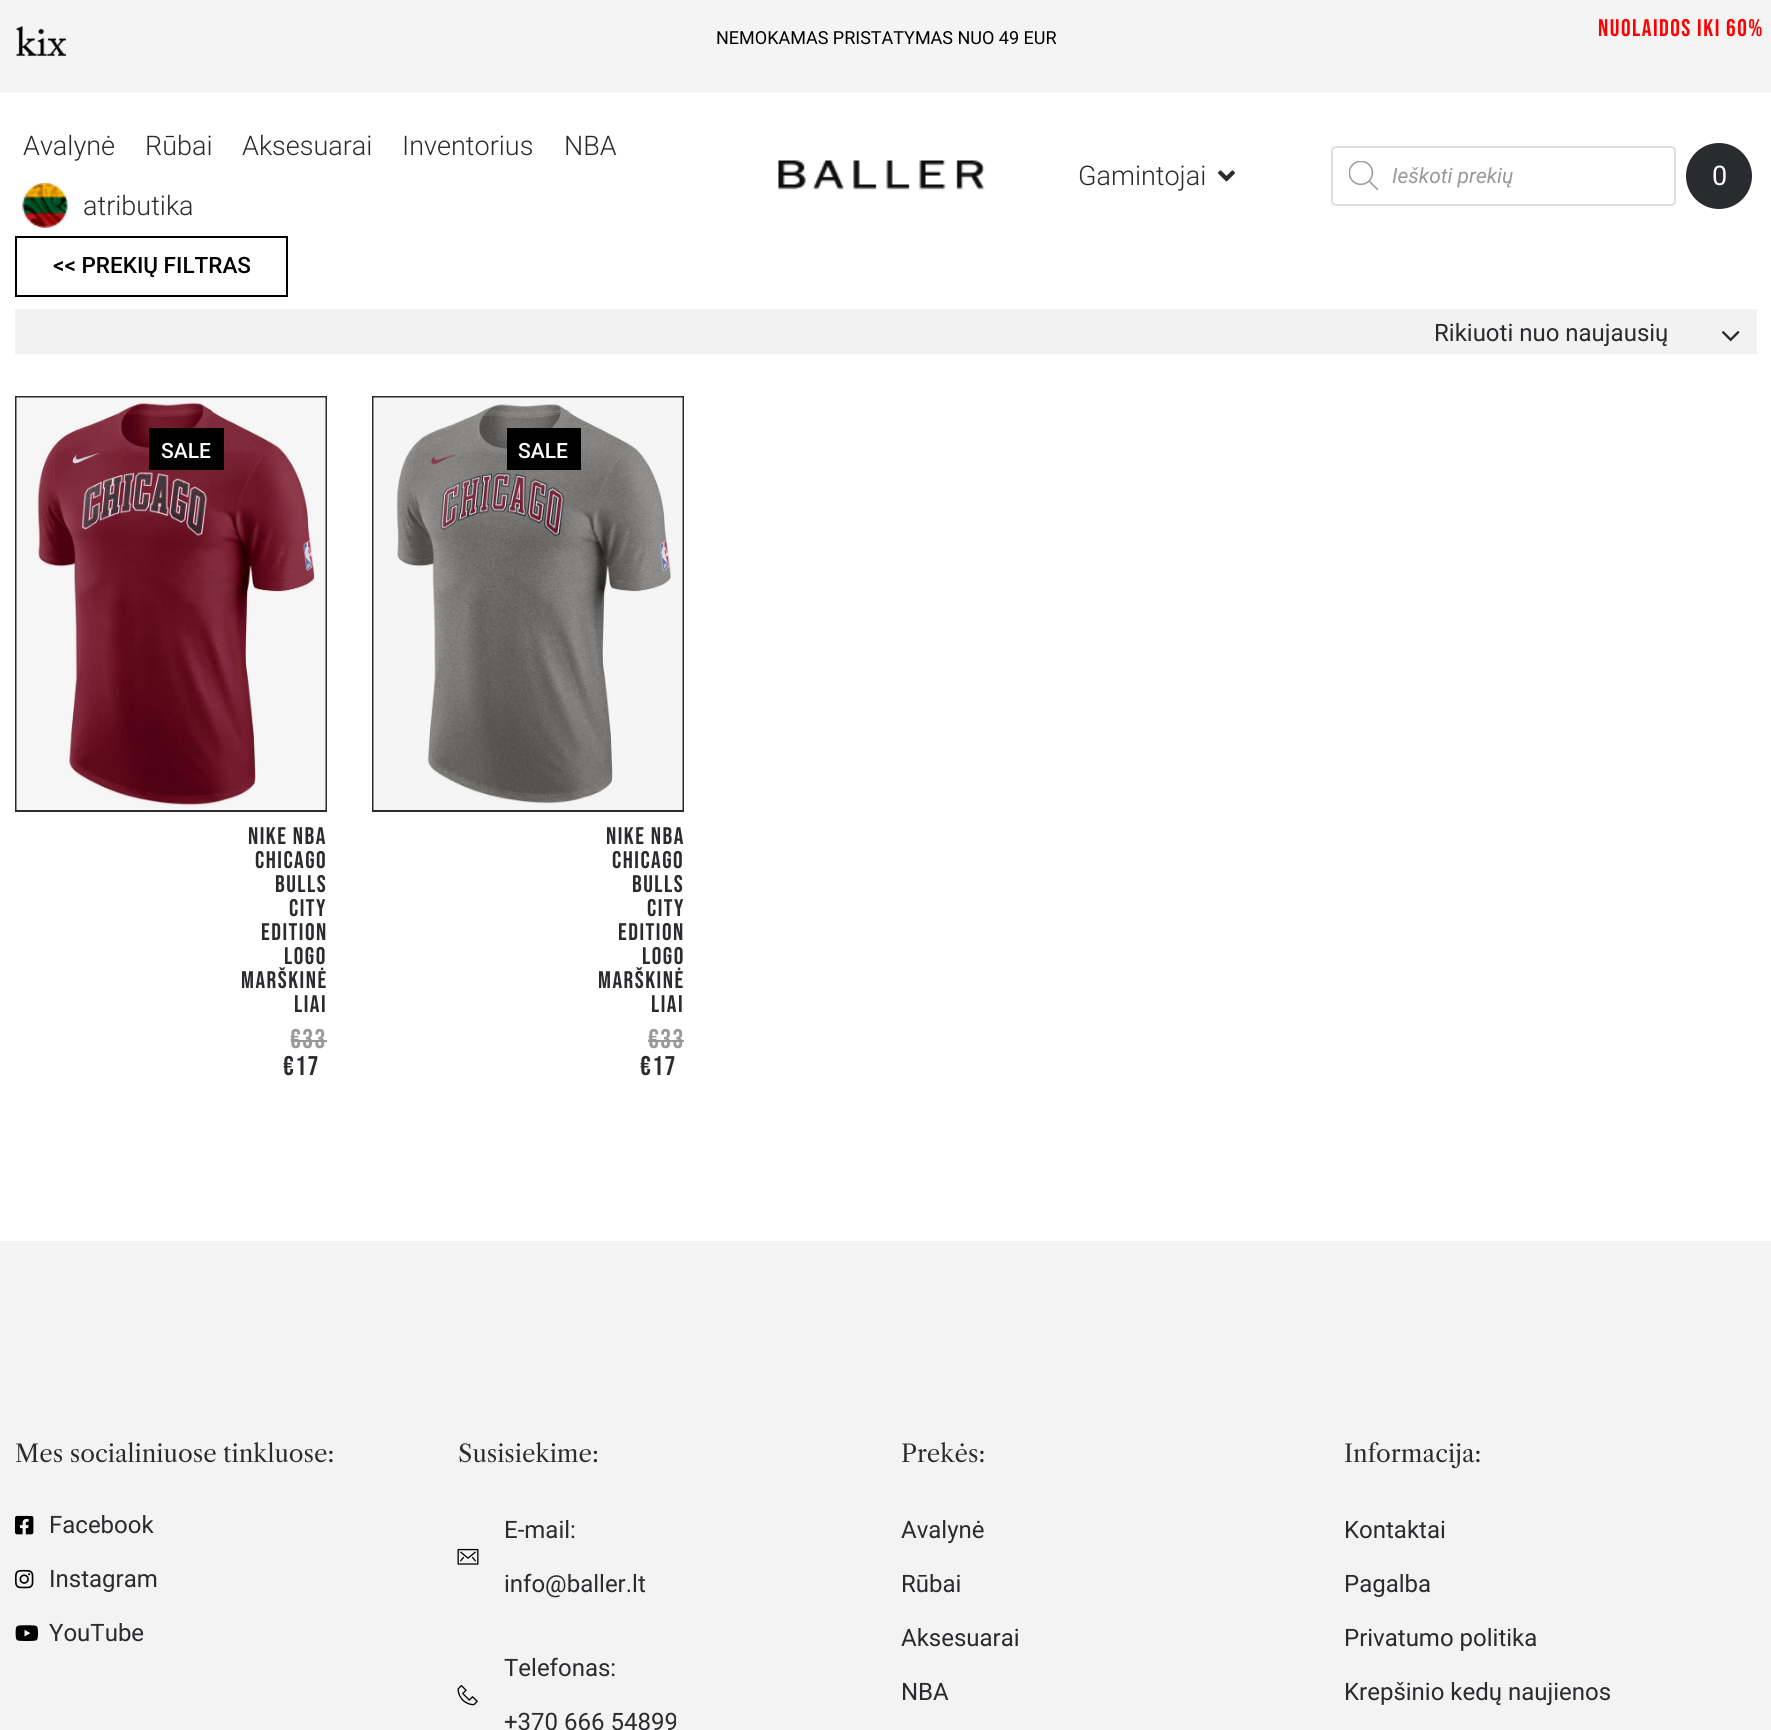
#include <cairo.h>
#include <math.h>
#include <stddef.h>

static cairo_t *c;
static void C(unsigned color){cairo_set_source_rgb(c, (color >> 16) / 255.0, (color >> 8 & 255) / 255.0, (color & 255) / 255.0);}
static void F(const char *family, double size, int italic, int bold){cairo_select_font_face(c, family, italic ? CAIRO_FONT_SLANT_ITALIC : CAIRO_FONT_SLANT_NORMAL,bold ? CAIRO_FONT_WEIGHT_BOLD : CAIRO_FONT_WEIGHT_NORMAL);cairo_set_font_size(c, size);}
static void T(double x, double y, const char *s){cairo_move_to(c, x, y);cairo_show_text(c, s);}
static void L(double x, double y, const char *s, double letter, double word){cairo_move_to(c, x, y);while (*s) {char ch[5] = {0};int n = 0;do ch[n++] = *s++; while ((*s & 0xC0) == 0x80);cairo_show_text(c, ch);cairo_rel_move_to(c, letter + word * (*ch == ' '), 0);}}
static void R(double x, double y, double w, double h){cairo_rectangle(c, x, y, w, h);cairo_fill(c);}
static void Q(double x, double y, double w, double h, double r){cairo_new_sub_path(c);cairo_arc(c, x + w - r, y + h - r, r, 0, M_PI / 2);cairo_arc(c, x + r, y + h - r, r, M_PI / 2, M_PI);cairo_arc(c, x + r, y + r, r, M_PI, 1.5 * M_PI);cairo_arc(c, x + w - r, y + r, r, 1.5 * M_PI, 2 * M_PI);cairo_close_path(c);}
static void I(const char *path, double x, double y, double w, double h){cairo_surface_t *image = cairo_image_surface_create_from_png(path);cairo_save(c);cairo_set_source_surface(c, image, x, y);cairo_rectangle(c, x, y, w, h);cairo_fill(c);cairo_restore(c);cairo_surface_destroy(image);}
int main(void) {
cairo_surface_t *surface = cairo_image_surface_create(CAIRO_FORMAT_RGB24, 1771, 1730);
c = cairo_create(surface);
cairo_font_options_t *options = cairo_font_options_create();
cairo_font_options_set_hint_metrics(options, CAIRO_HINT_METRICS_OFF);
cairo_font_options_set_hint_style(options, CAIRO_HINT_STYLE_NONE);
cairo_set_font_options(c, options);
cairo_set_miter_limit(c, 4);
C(0xffffff);
cairo_paint(c);
C(0xf4f4f4);
R(0,0,1771,93);
I("1.png",16,26,51,31);
F("Roboto",18,0,0);
C(0x000000);
T(716,44,"NEMOKAMAS PRISTATYMAS NUO 49 EUR");
F("Bebas Neue",24,0,0);
C(0xff0000);
L(1598,36,"Nuolaidos iki 60%",1.5,0);
F("Roboto Light",27,0,0);
C(0x292b2e);
T(23,155,"Avalynė");
T(145,155,"Rūbai");
T(242,155,"Aksesuarai");
T(402,155,"Inventorius");
T(564,155,"NBA");
I("2.png",22,183,46,45);
T(83,215,"atributika");
I("3.png",778,160,207,30);
T(1078,185,"Gamintojai");
I("4.png",1218,170,17,12);
Q(1332,147,343,58,4);
C(0xdddddd);
cairo_stroke(c);
I("5.png",1349,161,30,30);
F("Roboto",21,1,0);
C(0x999999);
T(1392,183,"Ieškoti prekių");
C(0x292b2e);
cairo_new_path(c);
cairo_arc(c,1719,176,33,0,2 * M_PI);
cairo_fill(c);
F("Roboto",27,0,0);
C(0xffffff);
T(1712,185,"0");
cairo_rectangle(c,16,237,271,59);
C(0x000000);
cairo_stroke(c);
F("Roboto Medium",22.5,0,0);
T(53,273,"<< PREKIŲ FILTRAS");
C(0xf2f2f2);
R(15,309,1742,45);
F("Roboto",24,0,0);
C(0x292b2e);
T(1434,341,"Rikiuoti nuo naujausių");
I("6.png",1721,331,19,11);
cairo_rectangle(c,16,397,310,414);
cairo_stroke(c);
I("7.png",16,397,310,413);
C(0x000000);
R(149,428,75,42);
F("Roboto Medium",21,0,0);
C(0xffffff);
T(161,458,"SALE");
F("Bebas Neue",24,0,0);
C(0x292b2e);
L(248,844,"nike nba",1.5,0);
L(255,868,"chicago",1.5,0);
L(275,892,"bulls",1.5,0);
L(289,916,"city",1.5,0);
L(261,940,"edition",1.5,0);
L(284,964,"logo",1.5,0);
L(241,988,"marškinė",1.5,0);
L(294,1012,"liai",1.5,0);
F("Bebas Neue",27,0,0);
C(0x999999);
L(290,1048,"€33",1.5,0);
C(0x979899);
R(291,1040,36,2);
C(0x292b2e);
L(283,1075,"€17",1.5,0);
cairo_rectangle(c,373,397,310,414);
cairo_stroke(c);
I("8.png",373,397,310,413);
C(0x000000);
R(507,428,74,42);
F("Roboto Medium",21,0,0);
C(0xffffff);
T(518,458,"SALE");
F("Bebas Neue",24,0,0);
C(0x292b2e);
L(606,844,"nike nba",1.5,0);
L(612,868,"chicago",1.5,0);
L(632,892,"bulls",1.5,0);
L(647,916,"city",1.5,0);
L(618,940,"edition",1.5,0);
L(642,964,"logo",1.5,0);
L(598,988,"marškinė",1.5,0);
L(651,1012,"liai",1.5,0);
F("Bebas Neue",27,0,0);
C(0x999999);
L(648,1048,"€33",1.5,0);
C(0x979899);
R(648,1040,36,2);
C(0x292b2e);
L(640,1075,"€17",1.5,0);
C(0xf3f3f3);
R(0,1241,1771,489);
F("Libre Caslon Text",24,0,0);
C(0x292b2e);
T(15,1462,"Mes socialiniuose tinkluose:");
I("9.png",15,1515,19,20);
F("Roboto",24,0,0);
T(49,1533,"Facebook");
I("10.png",15,1569,19,20);
T(49,1587,"Instagram");
I("11.png",15,1625,23,16);
T(49,1641,"YouTube");
F("Libre Caslon Text",24,0,0);
T(458,1462,"Susisiekime:");
I("12.png",457,1548,22,17);
F("Roboto",24,0,0);
T(504,1538,"E-mail:");
T(504,1592,"info@baller.lt");
I("13.png",457,1685,21,21);
T(504,1676,"Telefonas:");
T(504,1730,"+370 666 54899");
F("Libre Caslon Text",24,0,0);
T(901,1462,"Prekės:");
F("Roboto",24,0,0);
T(901,1538,"Avalynė");
T(901,1592,"Rūbai");
T(901,1646,"Aksesuarai");
T(901,1700,"NBA");
F("Libre Caslon Text",24,0,0);
T(1344,1462,"Informacija:");
F("Roboto",24,0,0);
T(1344,1538,"Kontaktai");
T(1344,1592,"Pagalba");
T(1344,1646,"Privatumo politika");
T(1344,1700,"Krepšinio kedų naujienos");
cairo_surface_write_to_png(surface, "o.png");
cairo_font_options_destroy(options);
cairo_destroy(c);
cairo_surface_destroy(surface);
return 0;
}
